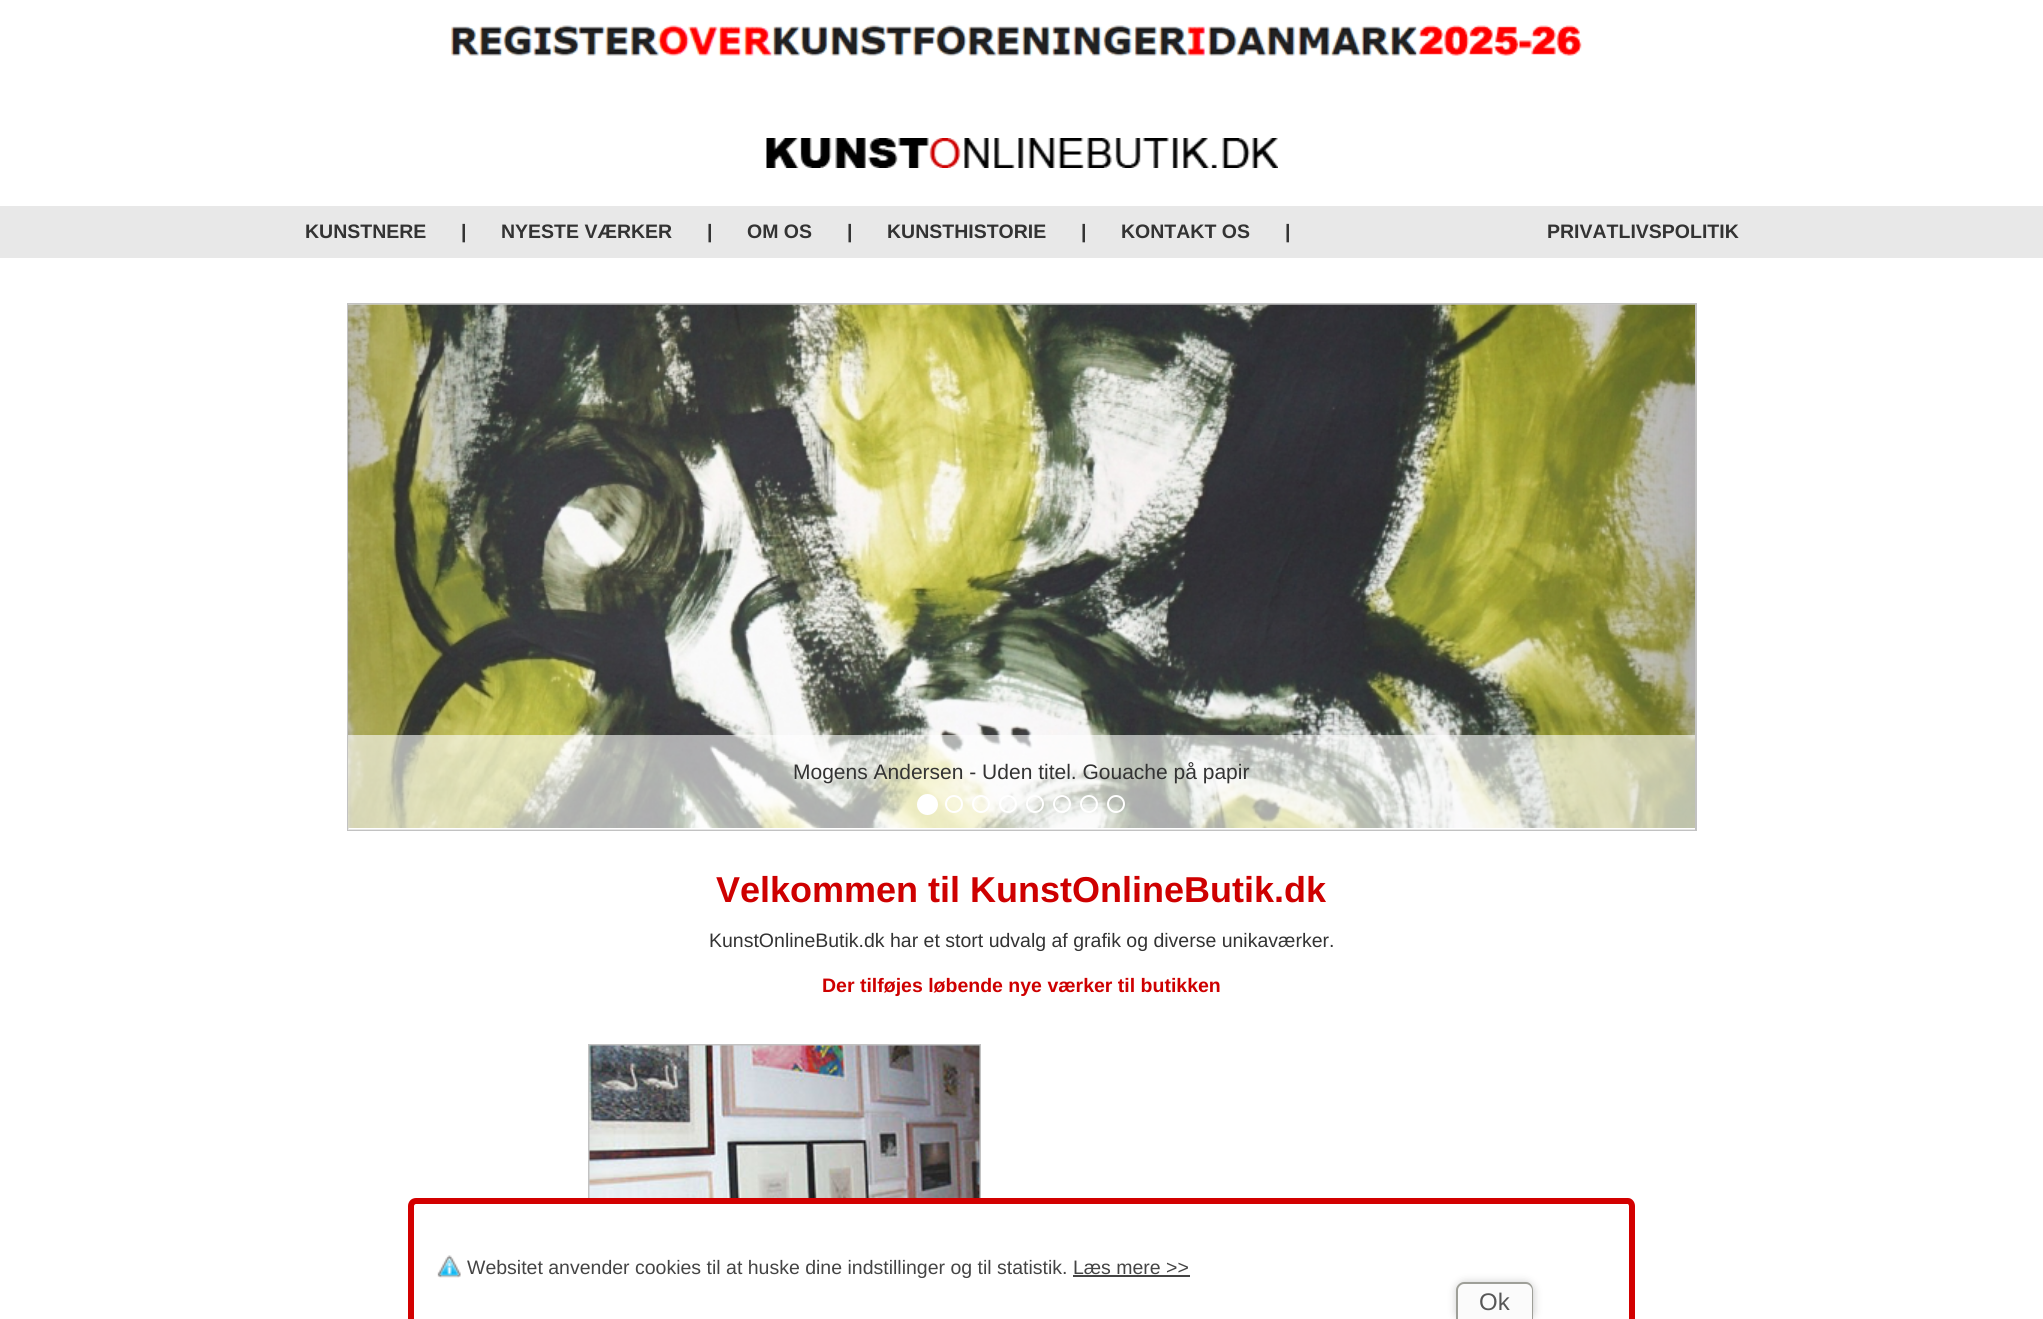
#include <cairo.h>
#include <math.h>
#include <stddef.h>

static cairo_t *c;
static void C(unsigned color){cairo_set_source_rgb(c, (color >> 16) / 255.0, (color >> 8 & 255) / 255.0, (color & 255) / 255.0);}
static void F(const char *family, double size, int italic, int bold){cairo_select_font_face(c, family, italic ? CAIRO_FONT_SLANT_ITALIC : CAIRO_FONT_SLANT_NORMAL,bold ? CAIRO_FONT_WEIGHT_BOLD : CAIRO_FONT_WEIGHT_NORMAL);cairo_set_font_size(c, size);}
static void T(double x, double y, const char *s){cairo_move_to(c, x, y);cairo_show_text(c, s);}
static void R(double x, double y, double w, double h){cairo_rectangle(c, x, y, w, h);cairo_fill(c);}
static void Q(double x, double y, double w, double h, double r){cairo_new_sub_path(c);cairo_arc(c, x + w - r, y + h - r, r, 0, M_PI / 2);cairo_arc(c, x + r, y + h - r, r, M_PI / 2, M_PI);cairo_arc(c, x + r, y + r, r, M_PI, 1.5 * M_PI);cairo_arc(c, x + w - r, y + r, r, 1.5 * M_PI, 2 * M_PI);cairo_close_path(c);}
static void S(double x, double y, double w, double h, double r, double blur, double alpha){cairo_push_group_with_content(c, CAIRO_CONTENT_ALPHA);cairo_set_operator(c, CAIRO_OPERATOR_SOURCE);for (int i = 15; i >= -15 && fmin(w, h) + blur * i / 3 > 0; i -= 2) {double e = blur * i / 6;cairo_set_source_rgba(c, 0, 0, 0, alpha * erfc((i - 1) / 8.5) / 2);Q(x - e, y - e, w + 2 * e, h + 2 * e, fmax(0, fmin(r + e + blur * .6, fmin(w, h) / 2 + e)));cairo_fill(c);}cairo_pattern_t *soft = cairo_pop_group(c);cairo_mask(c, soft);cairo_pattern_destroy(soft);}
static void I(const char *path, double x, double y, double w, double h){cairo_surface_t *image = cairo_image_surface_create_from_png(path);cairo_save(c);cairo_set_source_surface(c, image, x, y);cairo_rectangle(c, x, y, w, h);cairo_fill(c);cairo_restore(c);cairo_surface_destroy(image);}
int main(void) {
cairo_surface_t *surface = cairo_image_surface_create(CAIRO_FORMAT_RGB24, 2043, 1319);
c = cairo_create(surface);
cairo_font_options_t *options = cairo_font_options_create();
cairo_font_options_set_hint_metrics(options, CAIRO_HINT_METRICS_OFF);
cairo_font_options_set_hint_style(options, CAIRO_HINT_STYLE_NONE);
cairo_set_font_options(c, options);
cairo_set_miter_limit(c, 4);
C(0xffffff);
cairo_paint(c);
I("1.png",451,25,1131,31);
I("2.png",766,138,512,30);
C(0xe8e8e8);
R(0,206,2043,52);
F("Liberation Sans",19.5,0,1);
C(0x333333);
T(305,238,"KUNSTNERE");
T(461,238,"|");
T(501,238,"NYESTE VÆRKER");
T(707,238,"|");
T(747,238,"OM OS");
T(847,238,"|");
T(887,238,"KUNSTHISTORIE");
T(1081,238,"|");
T(1121,238,"KONTAKT OS");
T(1285,238,"|");
T(1547,238,"PRIVATLIVSPOLITIK");
cairo_rectangle(c,348,304,1348,526);
C(0xc2c2c2);
cairo_stroke(c);
I("3.png",348,304,1347,524);
cairo_set_source_rgba(c,1,1,1,0.6);
R(348,735,1347,95);
F("Liberation Sans",21,0,0);
C(0x333333);
T(793,779,"Mogens Andersen - Uden titel. Gouache på papir");
C(0xffffff);
cairo_new_path(c);
cairo_arc(c,927.5,804.5,9.5,0,2 * M_PI);
cairo_fill_preserve(c);
cairo_stroke(c);
cairo_arc(c,954,804,8,0,2 * M_PI);
cairo_stroke(c);
cairo_arc(c,981,804,8,0,2 * M_PI);
cairo_stroke(c);
cairo_arc(c,1008,804,8,0,2 * M_PI);
cairo_stroke(c);
cairo_arc(c,1035,804,8,0,2 * M_PI);
cairo_stroke(c);
cairo_arc(c,1062,804,8,0,2 * M_PI);
cairo_stroke(c);
cairo_arc(c,1089,804,8,0,2 * M_PI);
cairo_stroke(c);
cairo_arc(c,1116,804,8,0,2 * M_PI);
cairo_stroke(c);
F("Liberation Sans",36,0,1);
C(0xce0000);
T(716,902,"Velkommen til KunstOnlineButik.dk");
F("Liberation Sans",19.5,0,0);
C(0x333333);
T(709,947,"KunstOnlineButik.dk har et stort udvalg af grafik og diverse unikaværker.");
F("Liberation Sans",19.5,0,1);
C(0xce0000);
T(822,992,"Der tilføjes løbende nye værker til butikken");
cairo_rectangle(c,589,1045,391,226);
C(0xc2c2c2);
cairo_stroke(c);
I("4.png",589,1045,391,153);
C(0xffffff);
cairo_new_path(c);
cairo_move_to(c,416,1199);
cairo_line_to(c,1627,1199);
cairo_curve_to(c,1631.5,1199,1635,1202.5,1635,1207);
cairo_line_to(c,1635,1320);
cairo_line_to(c,408,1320);
cairo_line_to(c,408,1207);
cairo_curve_to(c,408,1202.5,411.5,1199,416,1199);
cairo_close_path(c);
cairo_fill(c);
C(0xd30000);
cairo_set_fill_rule(c,CAIRO_FILL_RULE_EVEN_ODD);
cairo_new_path(c);
cairo_move_to(c,416,1198);
cairo_line_to(c,1628,1198);
cairo_curve_to(c,1632,1198,1635,1202,1635,1206);
cairo_line_to(c,1635,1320);
cairo_line_to(c,408,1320);
cairo_line_to(c,408,1206);
cairo_curve_to(c,408,1202,411,1198,416,1198);
cairo_close_path(c);
cairo_move_to(c,416,1204);
cairo_line_to(c,1628,1204);
cairo_curve_to(c,1628,1204,1629,1205,1629,1206);
cairo_line_to(c,1629,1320);
cairo_line_to(c,414,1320);
cairo_line_to(c,414,1206);
cairo_curve_to(c,414,1205,415,1204,416,1204);
cairo_close_path(c);
cairo_fill(c);
I("5.png",437,1255,24,23);
F("Liberation Sans",19.5,0,0);
C(0x444444);
T(467,1274,"Websitet anvender cookies til at huske dine indstillinger og til statistik. Læs mere >>");
R(1073,1275,117,2);
C(0xc2c2c2);
S(1457,1283,76,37,8,4.5,1);
C(0xfbfbfb);
cairo_new_path(c);
cairo_move_to(c,1465,1283);
cairo_line_to(c,1525,1283);
cairo_curve_to(c,1529.5,1283,1533,1286.5,1533,1291);
cairo_line_to(c,1533,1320);
cairo_line_to(c,1457,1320);
cairo_line_to(c,1457,1291);
cairo_curve_to(c,1457,1286.5,1460.5,1283,1465,1283);
cairo_close_path(c);
cairo_fill(c);
C(0x9e9f98);
cairo_new_path(c);
cairo_move_to(c,1464,1282);
cairo_line_to(c,1526,1282);
cairo_curve_to(c,1530,1282,1533,1286,1533,1290);
cairo_line_to(c,1533,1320);
cairo_line_to(c,1456,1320);
cairo_line_to(c,1456,1290);
cairo_curve_to(c,1456,1286,1460,1282,1464,1282);
cairo_close_path(c);
cairo_move_to(c,1464,1284);
cairo_line_to(c,1526,1284);
cairo_curve_to(c,1529,1284,1532,1287,1532,1290);
cairo_line_to(c,1532,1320);
cairo_line_to(c,1458,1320);
cairo_line_to(c,1458,1290);
cairo_curve_to(c,1458,1287,1461,1284,1464,1284);
cairo_close_path(c);
cairo_fill(c);
F("Liberation Sans",24,0,0);
C(0x575757);
T(1479,1310,"Ok");
cairo_surface_write_to_png(surface, "o.png");
cairo_font_options_destroy(options);
cairo_destroy(c);
cairo_surface_destroy(surface);
return 0;
}
